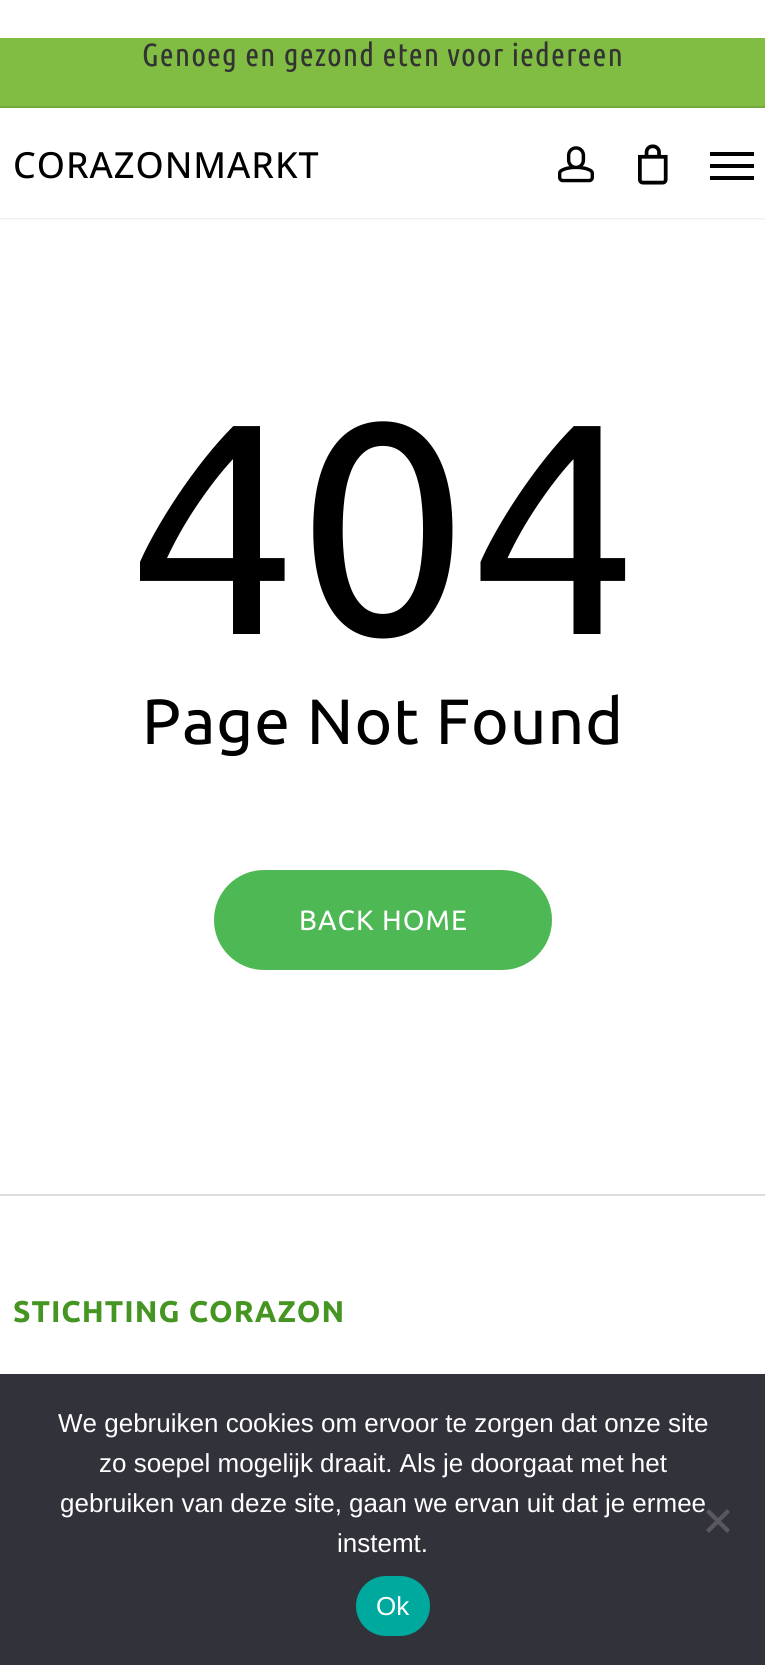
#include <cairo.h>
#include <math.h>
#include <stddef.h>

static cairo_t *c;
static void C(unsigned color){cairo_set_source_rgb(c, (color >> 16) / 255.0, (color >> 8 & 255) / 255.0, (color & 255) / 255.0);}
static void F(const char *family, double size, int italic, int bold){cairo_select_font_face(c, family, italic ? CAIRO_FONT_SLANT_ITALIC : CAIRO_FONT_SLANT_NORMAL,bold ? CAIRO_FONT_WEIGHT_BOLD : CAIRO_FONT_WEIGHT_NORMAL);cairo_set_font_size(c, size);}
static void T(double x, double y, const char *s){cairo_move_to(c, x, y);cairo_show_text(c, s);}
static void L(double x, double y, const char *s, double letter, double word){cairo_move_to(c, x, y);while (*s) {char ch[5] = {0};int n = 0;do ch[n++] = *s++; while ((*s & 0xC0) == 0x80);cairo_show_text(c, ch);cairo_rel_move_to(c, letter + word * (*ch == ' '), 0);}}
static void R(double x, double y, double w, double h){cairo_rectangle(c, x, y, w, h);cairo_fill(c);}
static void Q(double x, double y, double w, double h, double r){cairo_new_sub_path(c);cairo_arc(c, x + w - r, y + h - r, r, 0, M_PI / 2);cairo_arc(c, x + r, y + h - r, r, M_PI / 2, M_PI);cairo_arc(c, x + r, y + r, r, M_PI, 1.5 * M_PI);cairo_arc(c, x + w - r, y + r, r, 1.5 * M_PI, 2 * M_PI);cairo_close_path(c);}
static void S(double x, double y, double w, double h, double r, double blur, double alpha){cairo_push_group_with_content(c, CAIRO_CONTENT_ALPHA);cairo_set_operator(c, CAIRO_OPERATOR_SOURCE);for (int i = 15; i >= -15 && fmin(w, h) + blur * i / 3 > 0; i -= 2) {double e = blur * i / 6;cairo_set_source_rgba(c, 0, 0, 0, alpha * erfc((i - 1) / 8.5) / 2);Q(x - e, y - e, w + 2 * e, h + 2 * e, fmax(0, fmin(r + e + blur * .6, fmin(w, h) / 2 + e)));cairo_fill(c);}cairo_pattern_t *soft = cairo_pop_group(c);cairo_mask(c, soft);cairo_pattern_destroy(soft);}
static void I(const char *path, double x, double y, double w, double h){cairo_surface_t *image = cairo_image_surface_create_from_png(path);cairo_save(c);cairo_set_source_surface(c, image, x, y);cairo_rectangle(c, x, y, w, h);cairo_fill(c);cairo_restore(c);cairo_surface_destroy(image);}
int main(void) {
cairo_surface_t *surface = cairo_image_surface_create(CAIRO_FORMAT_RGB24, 765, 1665);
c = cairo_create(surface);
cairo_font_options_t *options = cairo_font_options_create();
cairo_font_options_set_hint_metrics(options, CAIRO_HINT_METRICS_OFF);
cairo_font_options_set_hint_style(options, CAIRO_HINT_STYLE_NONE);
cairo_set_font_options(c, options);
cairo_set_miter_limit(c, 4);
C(0xffffff);
cairo_paint(c);
cairo_save(c);
cairo_rectangle(c,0,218,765,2);
cairo_clip(c);
C(0x000000);
S(0,0,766,218,0,2,.14);
cairo_restore(c);
C(0x81bd42);
R(0,38,765,68);
C(0x74aa3b);
R(0,106,765,2);
F("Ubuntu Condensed",32,0,0);
C(0x333333);
L(142,66,"Genoeg en gezond eten voor iedereen",1,0);
F("Open Sans Medium",36,0,0);
C(0x000000);
L(13,178,"CORAZONMARKT",1,0);
I("1.png",558,146,36,37);
I("2.png",638,144,30,41);
R(710,152,44,4);
R(710,176,44,4);
R(710,164,44,4);
F("Ubuntu",300,0,0);
L(128,634,"404",1,0);
F("Ubuntu",64,0,0);
L(142,744,"Page Not Found",1,0);
C(0x4eb855);
Q(214,870,338,100,50);
cairo_fill(c);
F("Ubuntu",28,0,0);
C(0xffffff);
L(299,930,"BACK HOME",1,0);
C(0xdddddd);
R(0,1194,765,2);
F("Ubuntu",30,0,1);
C(0x459522);
L(13,1322,"STICHTING CORAZON",1,0);
C(0x32323a);
R(0,1374,765,291);
F("Liberation Sans",26,0,0);
C(0xffffff);
T(58,1432,"We gebruiken cookies om ervoor te zorgen dat onze site");
T(99,1472,"zo soepel mogelijk draait. Als je doorgaat met het");
T(60,1512,"gebruiken van deze site, gaan we ervan uit dat je ermee");
T(337,1552,"instemt.");
C(0x59595d);
cairo_new_path(c);
cairo_move_to(c,727,1509);
cairo_line_to(c,730,1512);
cairo_line_to(c,709,1533);
cairo_line_to(c,706,1530);
cairo_close_path(c);
cairo_fill(c);
cairo_new_path(c);
cairo_move_to(c,706,1512);
cairo_line_to(c,709,1509);
cairo_line_to(c,730,1530);
cairo_line_to(c,727,1533);
cairo_close_path(c);
cairo_fill(c);
C(0x00a99d);
Q(356,1576,74,60,30);
cairo_fill(c);
C(0xffffff);
T(376,1615,"Ok");
cairo_surface_write_to_png(surface, "o.png");
cairo_font_options_destroy(options);
cairo_destroy(c);
cairo_surface_destroy(surface);
return 0;
}
